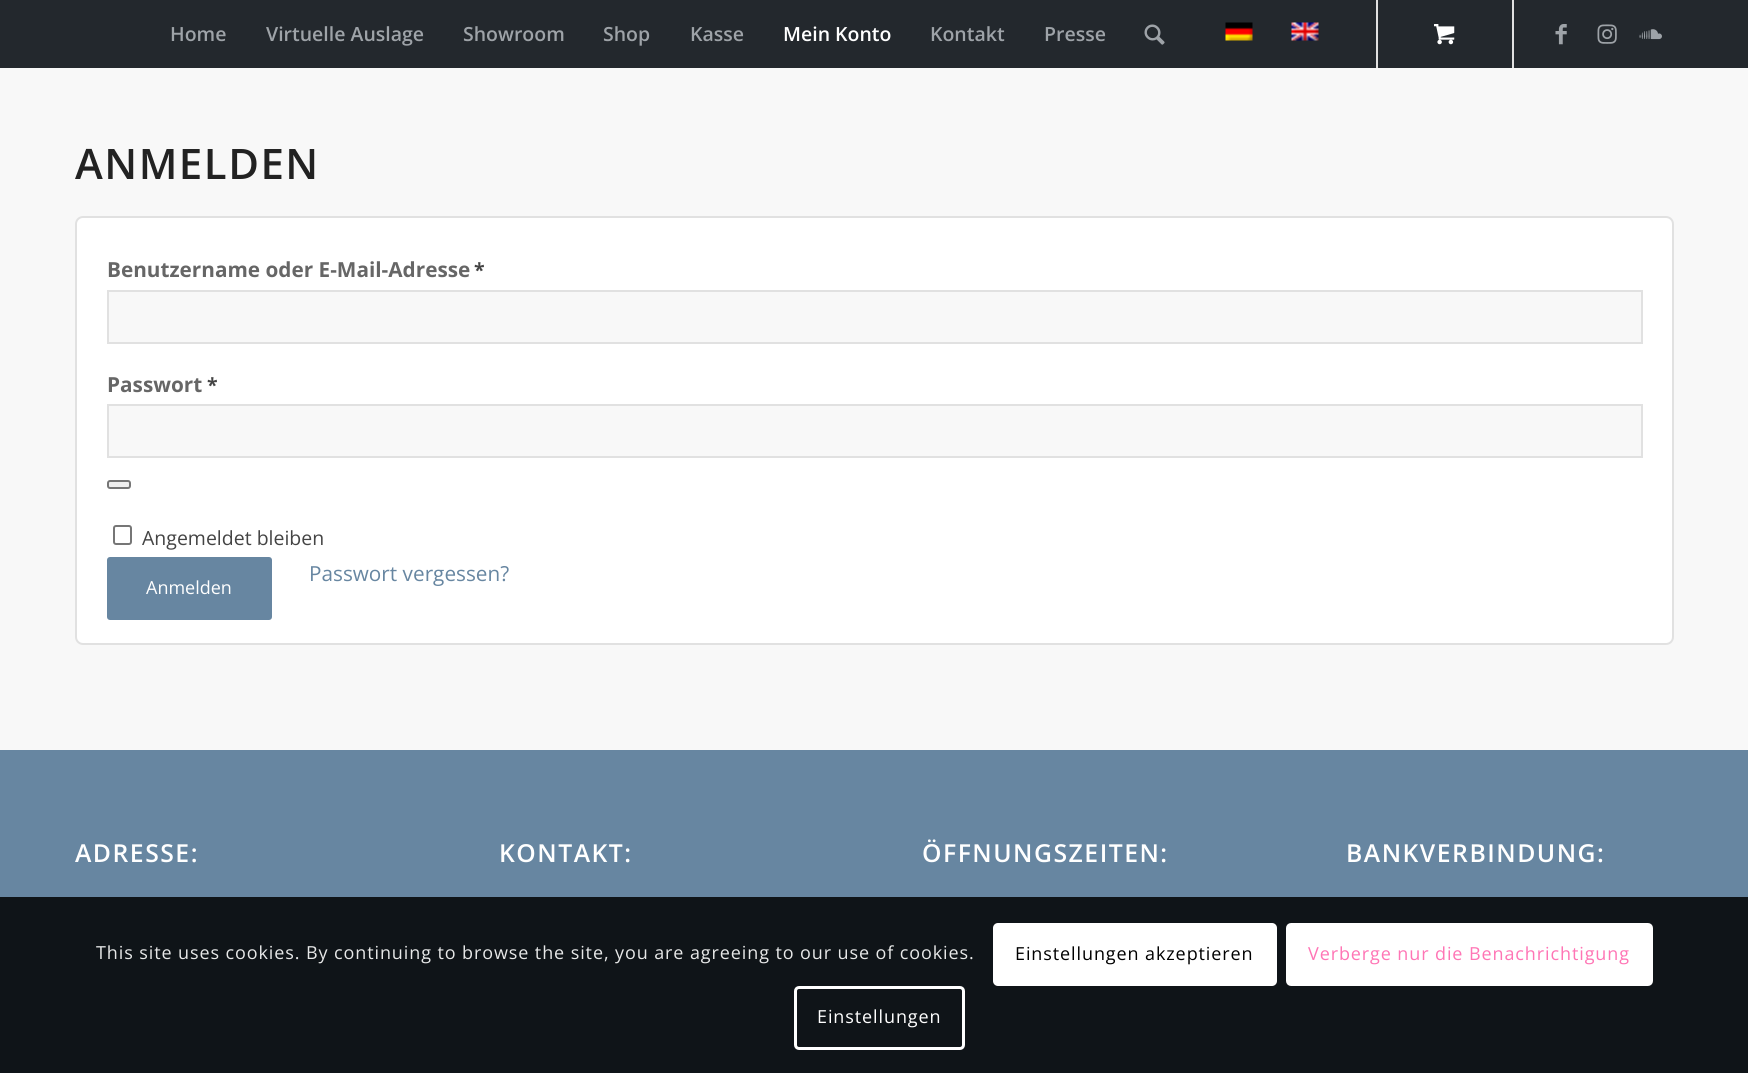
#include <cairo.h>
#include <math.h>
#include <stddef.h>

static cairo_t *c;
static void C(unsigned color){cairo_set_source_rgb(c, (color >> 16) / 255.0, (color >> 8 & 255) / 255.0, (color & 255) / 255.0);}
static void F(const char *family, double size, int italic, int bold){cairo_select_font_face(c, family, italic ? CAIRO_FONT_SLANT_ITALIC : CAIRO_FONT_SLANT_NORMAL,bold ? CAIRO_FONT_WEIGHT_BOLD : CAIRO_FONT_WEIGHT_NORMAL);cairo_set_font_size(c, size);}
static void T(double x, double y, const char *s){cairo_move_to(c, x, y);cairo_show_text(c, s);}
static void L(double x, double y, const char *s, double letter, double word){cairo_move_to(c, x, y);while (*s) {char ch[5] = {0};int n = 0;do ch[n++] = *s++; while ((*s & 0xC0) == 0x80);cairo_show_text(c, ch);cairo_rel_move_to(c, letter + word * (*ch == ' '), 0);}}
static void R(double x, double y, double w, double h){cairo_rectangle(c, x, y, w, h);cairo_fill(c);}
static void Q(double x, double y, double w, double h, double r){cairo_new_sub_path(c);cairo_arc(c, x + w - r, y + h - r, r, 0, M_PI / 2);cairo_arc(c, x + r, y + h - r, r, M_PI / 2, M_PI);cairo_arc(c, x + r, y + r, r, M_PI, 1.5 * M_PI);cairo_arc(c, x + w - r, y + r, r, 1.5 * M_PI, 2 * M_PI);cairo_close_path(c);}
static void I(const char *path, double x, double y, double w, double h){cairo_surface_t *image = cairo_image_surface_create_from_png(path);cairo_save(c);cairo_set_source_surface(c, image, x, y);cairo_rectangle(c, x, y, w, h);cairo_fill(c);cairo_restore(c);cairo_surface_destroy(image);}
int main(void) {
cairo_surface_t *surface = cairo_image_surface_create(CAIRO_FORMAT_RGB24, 1748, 1073);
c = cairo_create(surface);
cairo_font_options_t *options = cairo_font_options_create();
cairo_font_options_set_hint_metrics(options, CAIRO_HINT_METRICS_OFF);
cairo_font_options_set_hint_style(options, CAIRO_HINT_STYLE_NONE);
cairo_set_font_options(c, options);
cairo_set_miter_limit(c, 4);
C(0xf8f8f8);
cairo_paint(c);
C(0x23282d);
R(0,0,1748,68);
C(0xe1e1e1);
R(1376,0,2,68);
F("Open Sans SemiBold",19.5,0,0);
C(0x9ea3a8);
T(170,41,"Home");
T(266,41,"Virtuelle Auslage");
T(463,41,"Showroom");
T(603,41,"Shop");
T(690,41,"Kasse");
C(0xffffff);
T(783,41,"Mein Konto");
C(0x9ea3a8);
T(930,41,"Kontakt");
T(1044,41,"Presse");
I("1.png",1144,24,21,21);
I("2.png",1225,22,28,19);
I("3.png",1291,22,28,19);
C(0xe1e1e1);
R(1512,0,2,68);
I("4.png",1434,24,21,21);
I("5.png",1555,24,12,21);
I("6.png",1597,24,20,20);
I("7.png",1639,29,23,11);
F("Open Sans SemiBold",42,0,0);
C(0x222222);
L(75,179,"ANMELDEN",1.5,0);
C(0xffffff);
Q(76,217,1597,427,7);
cairo_fill_preserve(c);
C(0xe1e1e1);
cairo_stroke(c);
F("Open Sans",20.75,0,1);
C(0x666666);
T(107,277,"Benutzername oder E-Mail-Adresse");
F("Open Sans",19.5,0,1);
C(0x444444);
T(474,277,"*");
C(0xf8f8f8);
cairo_rectangle(c,108,291,1534,52);
cairo_fill_preserve(c);
C(0xe1e1e1);
cairo_stroke(c);
F("Open Sans",20.75,0,1);
C(0x666666);
T(107,392,"Passwort");
F("Open Sans",19.5,0,1);
C(0x444444);
T(207,392,"*");
C(0xf8f8f8);
cairo_rectangle(c,108,405,1534,52);
cairo_fill_preserve(c);
C(0xe1e1e1);
cairo_stroke(c);
C(0xefefef);
Q(108,481,22,7,2);
cairo_fill_preserve(c);
C(0x767676);
cairo_stroke(c);
Q(114,526,17,18,2);
cairo_stroke(c);
F("Open Sans",19.5,0,0);
C(0x444444);
T(142,545,"Angemeldet bleiben");
C(0x6786a1);
Q(107,557,165,63,3);
cairo_fill(c);
F("Open Sans",18,0,0);
C(0xffffff);
T(146,594,"Anmelden");
F("Open Sans",20.75,0,0);
C(0x6786a1);
T(309,581,"Passwort vergessen?");
R(0,750,1748,323);
F("Open Sans SemiBold",24.75,0,0);
C(0xffffff);
L(75,862,"ADRESSE:",1.5,0);
L(499,862,"KONTAKT:",1.5,0);
L(922,862,"ÖFFNUNGSZEITEN:",1.5,0);
L(1346,862,"BANKVERBINDUNG:",1.5,0);
cairo_set_source_rgba(c,0,0,0,0.85);
R(0,897,1748,176);
F("Open Sans",18,0,0);
C(0xe7e8e8);
L(96,959,"This site uses cookies. By continuing to browse the site, you are agreeing to our use of cookies.",.9,0);
C(0xffffff);
Q(993,923,284,63,5);
cairo_fill(c);
C(0x000000);
L(1015,960,"Einstellungen akzeptieren",.9,0);
C(0xffffff);
Q(1287.5,924.5,364,60,3.5);
cairo_fill_preserve(c);
cairo_set_line_width(c,3);
cairo_stroke(c);
C(0xff75b5);
L(1308,960,"Verberge nur die Benachrichtigung",.9,0);
Q(795.5,987.5,168,61,3.5);
C(0xffffff);
cairo_stroke(c);
L(817,1023,"Einstellungen",.9,0);
cairo_surface_write_to_png(surface, "o.png");
cairo_font_options_destroy(options);
cairo_destroy(c);
cairo_surface_destroy(surface);
return 0;
}
